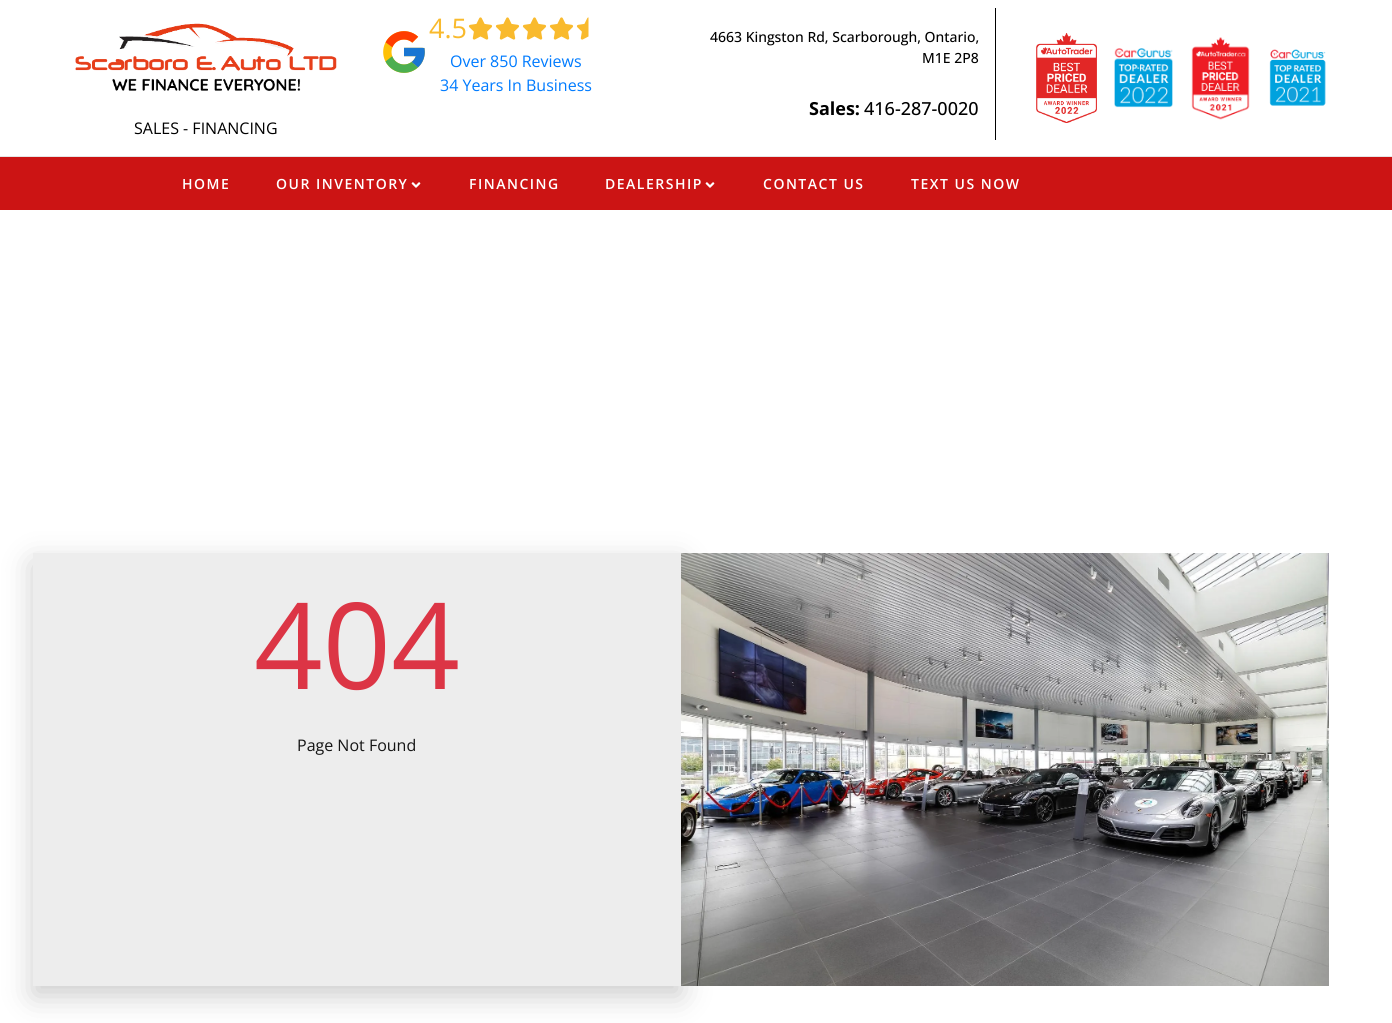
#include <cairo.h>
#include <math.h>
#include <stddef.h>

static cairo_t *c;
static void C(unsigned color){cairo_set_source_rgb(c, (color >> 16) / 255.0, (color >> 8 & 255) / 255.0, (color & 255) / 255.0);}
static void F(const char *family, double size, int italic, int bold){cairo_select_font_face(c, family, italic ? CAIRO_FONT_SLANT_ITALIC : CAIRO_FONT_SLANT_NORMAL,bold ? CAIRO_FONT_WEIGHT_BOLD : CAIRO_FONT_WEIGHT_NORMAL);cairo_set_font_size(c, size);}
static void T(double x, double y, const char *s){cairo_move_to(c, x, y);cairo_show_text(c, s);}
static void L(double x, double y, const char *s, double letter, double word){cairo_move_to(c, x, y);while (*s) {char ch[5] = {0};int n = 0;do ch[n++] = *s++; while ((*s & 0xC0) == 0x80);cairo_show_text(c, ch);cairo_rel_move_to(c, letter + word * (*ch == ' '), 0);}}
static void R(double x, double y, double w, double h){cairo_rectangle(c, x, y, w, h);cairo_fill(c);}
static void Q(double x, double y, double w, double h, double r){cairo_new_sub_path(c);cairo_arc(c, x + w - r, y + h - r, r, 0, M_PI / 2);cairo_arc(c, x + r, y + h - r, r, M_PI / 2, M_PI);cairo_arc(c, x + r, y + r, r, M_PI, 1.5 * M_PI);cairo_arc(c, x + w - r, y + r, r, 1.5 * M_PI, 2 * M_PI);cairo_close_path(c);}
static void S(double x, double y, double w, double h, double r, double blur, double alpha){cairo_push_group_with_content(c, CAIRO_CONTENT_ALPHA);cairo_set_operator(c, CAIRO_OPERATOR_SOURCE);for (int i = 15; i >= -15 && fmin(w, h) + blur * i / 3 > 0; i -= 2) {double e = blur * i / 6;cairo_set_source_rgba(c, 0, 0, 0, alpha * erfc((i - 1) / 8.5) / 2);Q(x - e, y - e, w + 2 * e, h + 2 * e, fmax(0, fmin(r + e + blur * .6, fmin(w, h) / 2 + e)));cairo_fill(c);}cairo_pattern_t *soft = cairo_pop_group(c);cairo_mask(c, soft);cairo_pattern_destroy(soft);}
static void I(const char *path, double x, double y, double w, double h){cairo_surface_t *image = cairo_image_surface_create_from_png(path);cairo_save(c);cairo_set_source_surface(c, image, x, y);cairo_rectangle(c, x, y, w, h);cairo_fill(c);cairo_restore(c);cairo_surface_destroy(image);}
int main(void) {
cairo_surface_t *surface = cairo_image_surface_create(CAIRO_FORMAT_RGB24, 1392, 1023);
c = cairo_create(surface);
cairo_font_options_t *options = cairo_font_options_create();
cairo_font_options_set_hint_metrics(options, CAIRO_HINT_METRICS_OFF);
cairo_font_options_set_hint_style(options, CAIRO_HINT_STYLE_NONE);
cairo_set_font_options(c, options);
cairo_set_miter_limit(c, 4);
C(0xffffff);
cairo_paint(c);
I("1.png",383,31,42,42);
F("Open Sans",27,0,0);
C(0xf9ba2d);
T(429,38,"4.5");
I("2.png",468,17,25,23);
I("2.png",495,17,25,23);
I("2.png",522,17,25,23);
I("2.png",549,17,25,23);
I("3.png",576,17,13,23);
F("Open Sans",16,0,0);
C(0x007bff);
T(450,67,"Over 850 Reviews");
T(440,91,"34 Years In Business");
C(0x000000);
R(995,8,1,132);
F("Open Sans Medium",14,0,0);
T(710,42,"4663 Kingston Rd, Scarborough, Ontario,");
T(922,63,"M1E 2P8");
F("Open Sans",18,0,1);
T(809,115,"Sales:");
F("Open Sans Medium",18,0,0);
T(864,115,"416-287-0020");
I("4.png",75,23,262,68);
F("Open Sans",16,0,0);
T(134,134,"SALES - FINANCING");
I("5.png",1036,33,61,90);
I("6.png",1114,48,59,60);
I("7.png",1191,37,59,83);
I("8.png",1269,49,57,57);
C(0xcc1414);
R(0,157,1392,53);
C(0xe5e5e5);
R(0,156,1392,1);
F("Open Sans SemiBold",14,0,0);
C(0xffffff);
L(182,189,"HOME",1.5,0);
L(276,189,"OUR INVENTORY",1.5,0);
I("9.png",411,182,10,6);
L(469,189,"FINANCING",1.5,0);
L(605,189,"DEALERSHIP",1.5,0);
I("9.png",705,182,10,6);
L(763,189,"CONTACT US",1.5,0);
L(911,189,"TEXT US NOW",1.5,0);
C(0x000000);
S(33,563,648,433,0,15,.2);
C(0xededed);
R(33,553,648,433);
F("Open Sans",120,0,0);
C(0xdc3545);
T(254,689,"404");
F("Open Sans",16,0,0);
C(0x151515);
T(297,751,"Page Not Found");
I("10.png",681,553,648,433);
cairo_surface_write_to_png(surface, "o.png");
cairo_font_options_destroy(options);
cairo_destroy(c);
cairo_surface_destroy(surface);
return 0;
}
